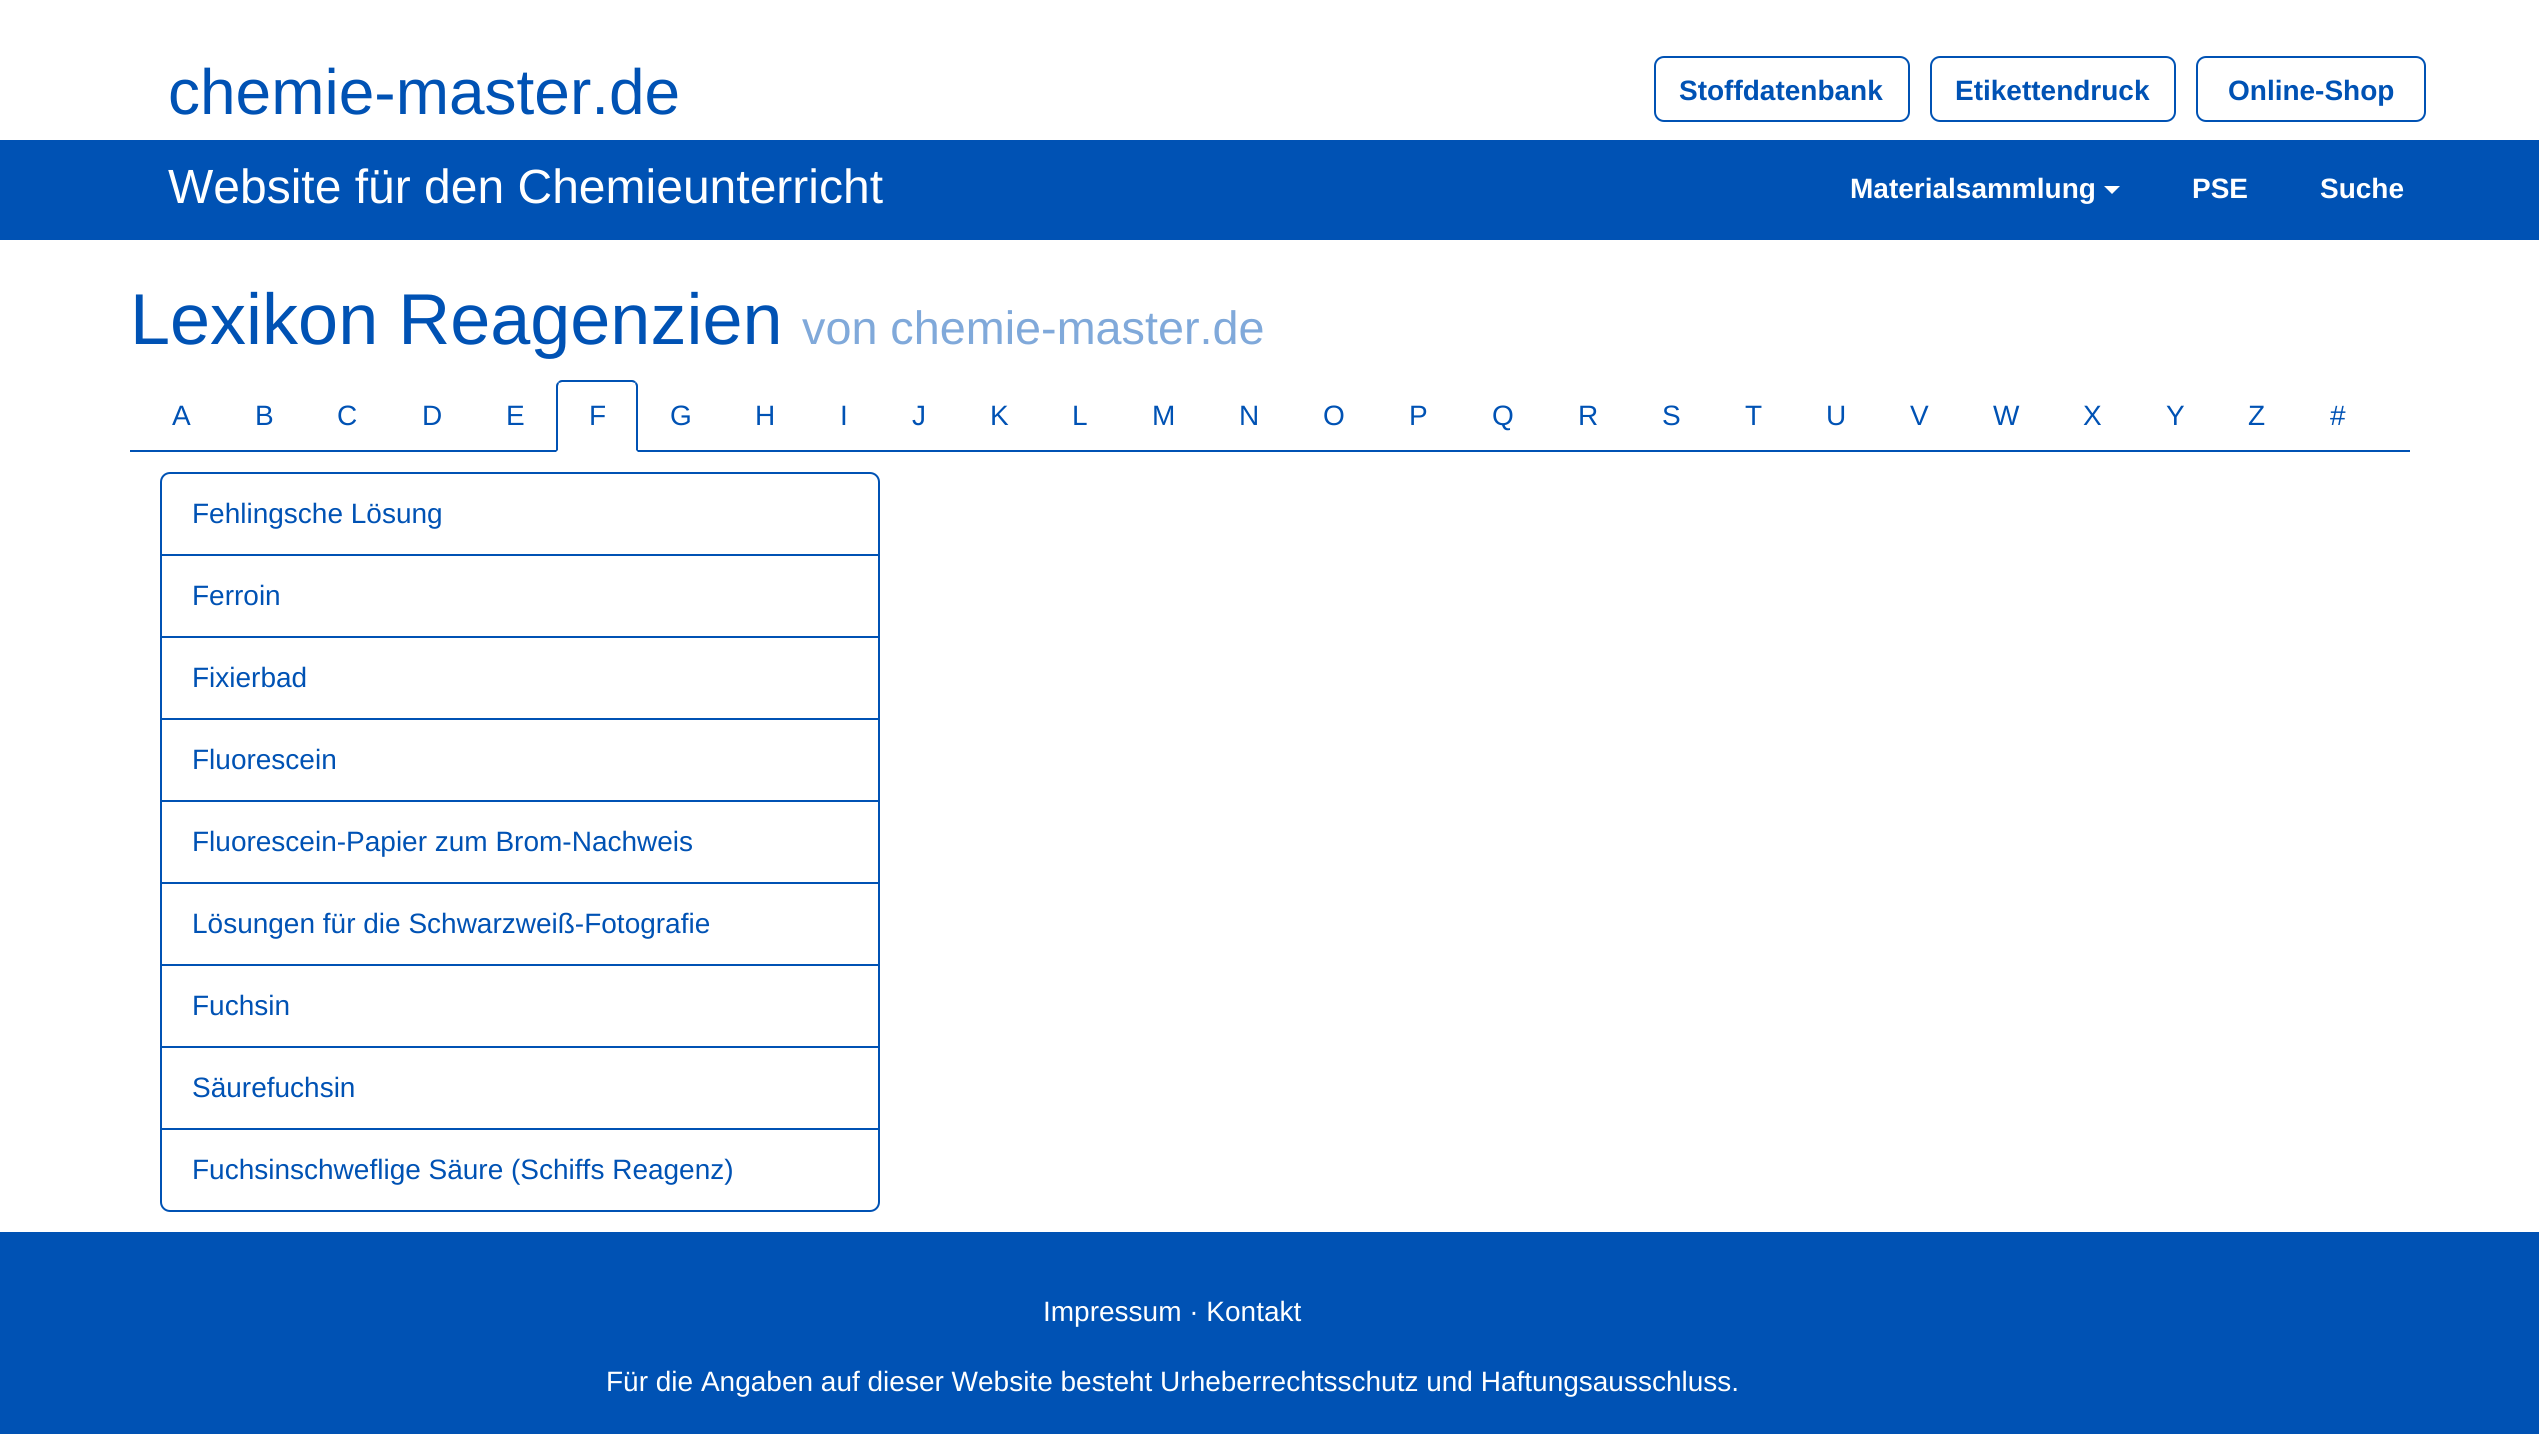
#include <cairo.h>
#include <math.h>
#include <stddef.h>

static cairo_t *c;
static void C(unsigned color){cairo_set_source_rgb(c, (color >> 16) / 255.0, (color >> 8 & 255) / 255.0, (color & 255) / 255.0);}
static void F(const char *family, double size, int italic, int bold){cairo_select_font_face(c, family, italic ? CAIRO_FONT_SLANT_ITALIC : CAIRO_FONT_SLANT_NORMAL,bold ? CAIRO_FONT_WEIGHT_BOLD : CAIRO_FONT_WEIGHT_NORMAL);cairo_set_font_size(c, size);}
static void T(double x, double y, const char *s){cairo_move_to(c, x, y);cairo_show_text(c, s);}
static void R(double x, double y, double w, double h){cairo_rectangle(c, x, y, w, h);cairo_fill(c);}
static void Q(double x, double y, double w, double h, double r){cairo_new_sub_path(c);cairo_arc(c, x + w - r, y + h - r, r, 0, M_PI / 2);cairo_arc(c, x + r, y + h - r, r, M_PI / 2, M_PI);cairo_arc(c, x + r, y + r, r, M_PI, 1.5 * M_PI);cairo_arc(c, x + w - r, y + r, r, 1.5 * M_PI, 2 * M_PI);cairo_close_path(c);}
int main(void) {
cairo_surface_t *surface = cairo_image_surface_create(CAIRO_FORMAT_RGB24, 2539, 1434);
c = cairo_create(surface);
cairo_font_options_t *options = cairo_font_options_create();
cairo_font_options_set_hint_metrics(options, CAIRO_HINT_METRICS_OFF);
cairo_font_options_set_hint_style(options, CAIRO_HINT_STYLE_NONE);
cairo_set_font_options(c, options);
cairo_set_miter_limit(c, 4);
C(0xffffff);
cairo_paint(c);
C(0x0052b4);
R(0,140,2539,100);
F("Liberation Sans",64,0,0);
T(168,114,"chemie-master.de");
F("Liberation Sans",48,0,0);
C(0xffffff);
T(168,203,"Website für den Chemieunterricht");
F("Liberation Sans",28,0,1);
T(1850,198,"Materialsammlung");
cairo_new_path(c);
cairo_move_to(c,2104,186);
cairo_line_to(c,2120,186);
cairo_line_to(c,2112,194);
cairo_close_path(c);
cairo_fill(c);
T(2192,198,"PSE");
T(2320,198,"Suche");
Q(1655,57,254,64,9);
C(0x0052b4);
cairo_stroke(c);
T(1679,100,"Stoffdatenbank");
Q(1931,57,244,64,9);
cairo_stroke(c);
T(1955,100,"Etikettendruck");
Q(2197,57,228,64,9);
cairo_stroke(c);
T(2228,100,"Online-Shop");
F("Liberation Sans",72,0,0);
T(130,344,"Lexikon Reagenzien");
F("Liberation Sans",46.75,0,0);
C(0x80a9da);
T(802,344,"von chemie-master.de");
C(0x0052b4);
R(130,450,2280,2);
F("Liberation Sans",28,0,0);
T(172,425,"A");
T(255,425,"B");
T(337,425,"C");
T(422,425,"D");
T(506,425,"E");
C(0xffffff);
cairo_new_path(c);
cairo_move_to(c,562,380);
cairo_line_to(c,632,380);
cairo_curve_to(c,635.5,380,638,382.5,638,386);
cairo_line_to(c,638,452);
cairo_line_to(c,556,452);
cairo_line_to(c,556,386);
cairo_curve_to(c,556,382.5,558.5,380,562,380);
cairo_close_path(c);
cairo_fill(c);
C(0x0052b4);
cairo_new_path(c);
cairo_move_to(c,562,380);
cairo_curve_to(c,560,380,559,381,558,382);
cairo_line_to(c,559,383);
cairo_line_to(c,562,382);
cairo_line_to(c,632,382);
cairo_line_to(c,635,383);
cairo_line_to(c,636,382);
cairo_curve_to(c,635,381,634,380,632,380);
cairo_close_path(c);
cairo_fill(c);
cairo_new_path(c);
cairo_move_to(c,638,452);
cairo_line_to(c,638,386);
cairo_curve_to(c,638,384,637,383,636,382);
cairo_line_to(c,635,383);
cairo_line_to(c,636,386);
cairo_line_to(c,636,450);
cairo_close_path(c);
cairo_fill(c);
cairo_new_path(c);
cairo_move_to(c,556,452);
cairo_line_to(c,558,450);
cairo_line_to(c,558,386);
cairo_line_to(c,559,383);
cairo_line_to(c,558,382);
cairo_curve_to(c,557,383,556,384,556,386);
cairo_close_path(c);
cairo_fill(c);
T(589,425,"F");
T(670,425,"G");
T(755,425,"H");
T(840,425,"I");
T(912,425,"J");
T(990,425,"K");
T(1072,425,"L");
T(1152,425,"M");
T(1239,425,"N");
T(1323,425,"O");
T(1409,425,"P");
T(1492,425,"Q");
T(1578,425,"R");
T(1662,425,"S");
T(1745,425,"T");
T(1826,425,"U");
T(1910,425,"V");
T(1993,425,"W");
T(2083,425,"X");
T(2166,425,"Y");
T(2248,425,"Z");
T(2330,425,"#");
cairo_new_path(c);
cairo_move_to(c,170,473);
cairo_line_to(c,870,473);
cairo_curve_to(c,875,473,879,477,879,482);
cairo_line_to(c,879,555);
cairo_line_to(c,161,555);
cairo_line_to(c,161,482);
cairo_curve_to(c,161,477,165,473,170,473);
cairo_close_path(c);
cairo_stroke(c);
T(192,523,"Fehlingsche Lösung");
cairo_rectangle(c,161,555,718,82);
cairo_stroke(c);
T(192,605,"Ferroin");
cairo_rectangle(c,161,637,718,82);
cairo_stroke(c);
T(192,687,"Fixierbad");
cairo_rectangle(c,161,719,718,82);
cairo_stroke(c);
T(192,769,"Fluorescein");
cairo_rectangle(c,161,801,718,82);
cairo_stroke(c);
T(192,851,"Fluorescein-Papier zum Brom-Nachweis");
cairo_rectangle(c,161,883,718,82);
cairo_stroke(c);
T(192,933,"Lösungen für die Schwarzweiß-Fotografie");
cairo_rectangle(c,161,965,718,82);
cairo_stroke(c);
T(192,1015,"Fuchsin");
cairo_rectangle(c,161,1047,718,82);
cairo_stroke(c);
T(192,1097,"Säurefuchsin");
cairo_new_path(c);
cairo_move_to(c,161,1129);
cairo_line_to(c,879,1129);
cairo_line_to(c,879,1202);
cairo_curve_to(c,879,1207,875,1211,870,1211);
cairo_line_to(c,170,1211);
cairo_curve_to(c,165,1211,161,1207,161,1202);
cairo_close_path(c);
cairo_stroke(c);
T(192,1179,"Fuchsinschweflige Säure (Schiffs Reagenz)");
R(0,1232,2539,202);
C(0xffffff);
T(1043,1321,"Impressum · Kontakt");
T(606,1391,"Für die Angaben auf dieser Website besteht Urheberrechtsschutz und Haftungsausschluss.");
cairo_surface_write_to_png(surface, "o.png");
cairo_font_options_destroy(options);
cairo_destroy(c);
cairo_surface_destroy(surface);
return 0;
}
